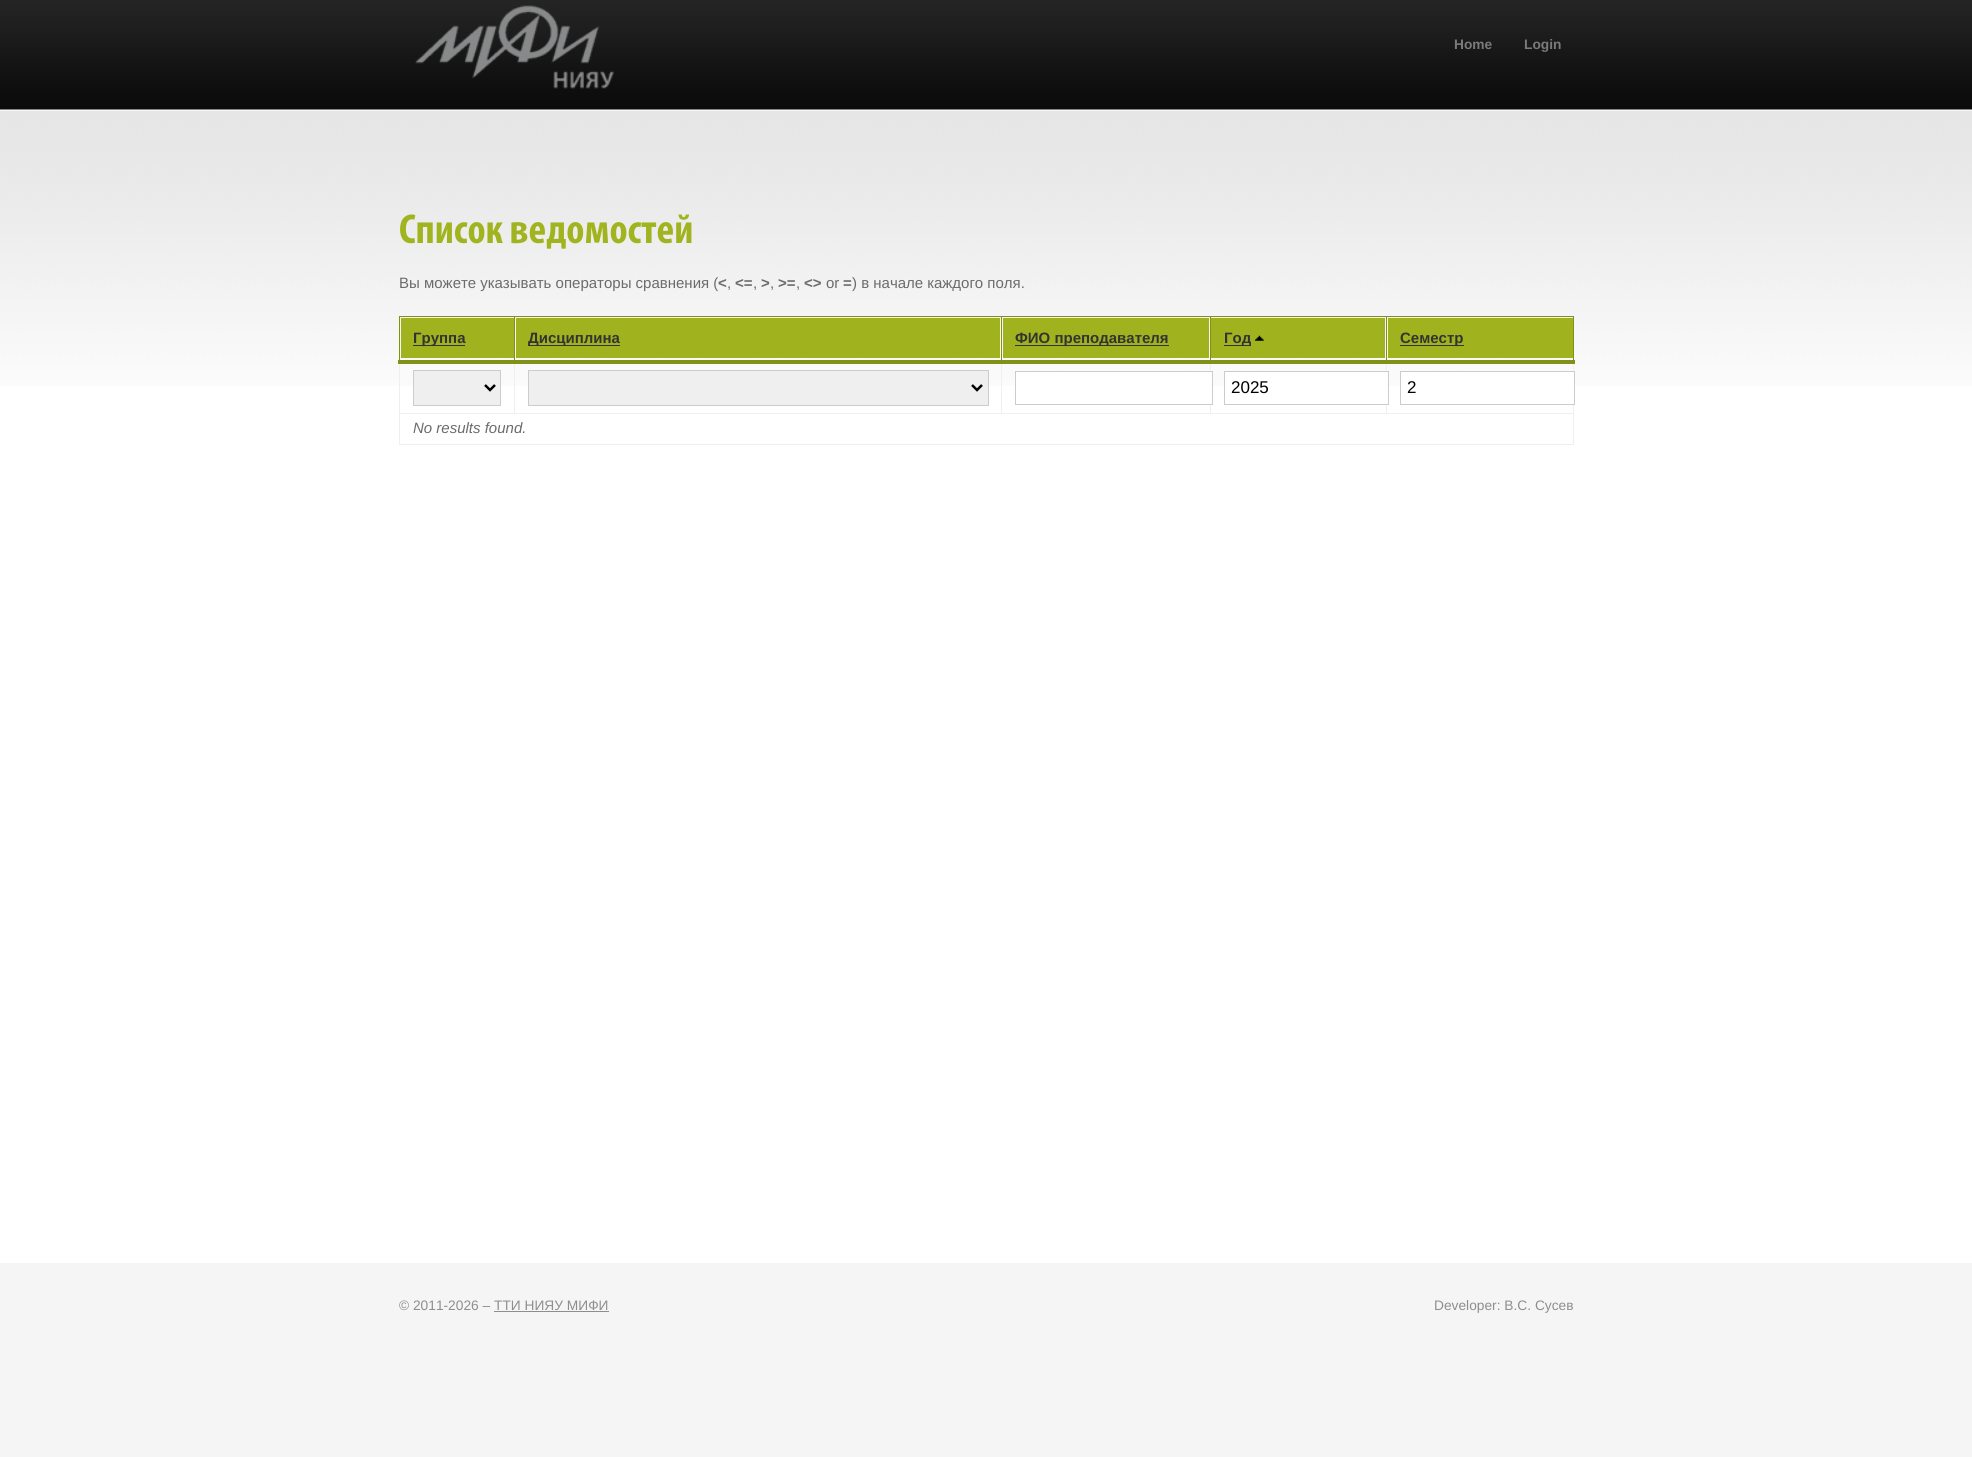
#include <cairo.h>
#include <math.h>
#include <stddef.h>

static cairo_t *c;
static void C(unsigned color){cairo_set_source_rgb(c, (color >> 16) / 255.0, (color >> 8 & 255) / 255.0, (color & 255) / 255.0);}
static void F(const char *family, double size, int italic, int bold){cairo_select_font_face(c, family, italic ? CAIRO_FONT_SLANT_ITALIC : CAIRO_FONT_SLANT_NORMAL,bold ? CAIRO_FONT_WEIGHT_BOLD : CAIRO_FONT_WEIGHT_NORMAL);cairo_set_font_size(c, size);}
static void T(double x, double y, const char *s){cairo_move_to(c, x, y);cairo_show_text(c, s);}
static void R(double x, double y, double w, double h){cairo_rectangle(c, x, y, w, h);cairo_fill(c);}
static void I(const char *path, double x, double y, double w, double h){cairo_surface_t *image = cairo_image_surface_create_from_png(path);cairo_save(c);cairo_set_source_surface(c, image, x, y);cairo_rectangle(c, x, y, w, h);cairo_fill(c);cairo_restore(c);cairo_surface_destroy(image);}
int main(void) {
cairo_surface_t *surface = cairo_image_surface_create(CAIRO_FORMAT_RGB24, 1972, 1457);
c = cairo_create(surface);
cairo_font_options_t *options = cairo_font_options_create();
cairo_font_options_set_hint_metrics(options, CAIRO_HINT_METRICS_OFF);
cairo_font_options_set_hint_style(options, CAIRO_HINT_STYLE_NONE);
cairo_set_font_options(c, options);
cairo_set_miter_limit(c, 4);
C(0xffffff);
cairo_paint(c);
I("1.png",0,0,1972,386);
I("2.png",415,5,199,84);
F("Liberation Sans",13.75,0,1);
C(0x7a7a7a);
T(1454,49,"Home");
T(1524,49,"Login");
F("Myriad",42,0,1);
C(0xa0b41f);
T(399,243,"Список ведомостей");
F("Liberation Sans",15,0,0);
C(0x6b6b6b);
T(399,288,"Вы можете указывать операторы сравнения (");
F("Liberation Sans",15,0,1);
T(718,288,"<");
T(735,288,"<=");
T(761,288,">");
T(778,288,">=");
T(804,288,"<>");
F("Liberation Sans",15,0,0);
T(826,288,"or");
F("Liberation Sans",15,0,1);
T(843,288,"=");
F("Liberation Sans",15,0,0);
T(852,288,") в начале каждого поля.");
T(727,288,",");
T(753,288,",");
T(770,288,",");
T(796,288,",");
C(0xefefef);
R(1573,364,1,81);
R(399,444,1175,1);
R(399,364,1,81);
C(0xa0b31e);
R(401,318,113,40);
C(0x819017);
R(1386,316,188,1);
C(0xefefef);
R(399,413,1175,1);
R(1386,361,1,53);
C(0x819017);
R(1386,316,1,47);
R(1210,316,178,1);
C(0xefefef);
R(1210,361,1,53);
C(0x819017);
R(1210,316,1,47);
R(1001,316,210,1);
C(0xefefef);
R(1001,361,1,53);
C(0x819017);
R(1001,316,1,47);
R(514,316,489,1);
C(0xefefef);
R(514,361,1,53);
C(0x819017);
R(514,316,1,47);
R(399,316,116,1);
R(399,316,1,47);
C(0x333333);
R(413,345,52,1);
F("Liberation Sans",15,0,1);
T(413,343,"Группа");
C(0xa0b31e);
R(516,318,484,40);
C(0x333333);
R(528,345,92,1);
T(528,343,"Дисциплина");
C(0xa0b31e);
R(1003,318,206,40);
C(0x333333);
R(1015,345,154,1);
T(1015,343,"ФИО преподавателя");
C(0xa0b31e);
R(1211,318,174,40);
C(0x333333);
R(1224,345,27,1);
T(1224,343,"Год");
I("3.png",1255,335,9,6);
C(0xa0b31e);
R(1388,318,185,40);
C(0x819017);
R(1573,316,1,47);
R(398,360,1177,4);
C(0x333333);
R(1400,345,64,1);
T(1400,343,"Семестр");
C(0xefefef);
cairo_rectangle(c,413.5,370.5,87,35);
cairo_fill_preserve(c);
C(0xcccccc);
cairo_set_line_width(c,1);
cairo_stroke(c);
cairo_new_path(c);
cairo_move_to(c,485,385);
cairo_line_to(c,490,390);
cairo_line_to(c,495,385);
C(0x000000);
cairo_set_line_width(c,2.5);
cairo_stroke(c);
C(0xefefef);
cairo_rectangle(c,528.5,370.5,460,35);
cairo_fill_preserve(c);
C(0xcccccc);
cairo_set_line_width(c,1);
cairo_stroke(c);
cairo_new_path(c);
cairo_move_to(c,972,385);
cairo_line_to(c,977,390);
cairo_line_to(c,982,385);
C(0x000000);
cairo_set_line_width(c,2.5);
cairo_stroke(c);
C(0xffffff);
cairo_rectangle(c,1015.5,371.5,197,33);
cairo_fill_preserve(c);
C(0xcccccc);
cairo_set_line_width(c,1);
cairo_stroke(c);
C(0xffffff);
cairo_rectangle(c,1224.5,371.5,164,33);
cairo_fill_preserve(c);
C(0xcccccc);
cairo_stroke(c);
F("Liberation Sans",17,0,0);
C(0x000000);
T(1231,393,"2025");
C(0xffffff);
cairo_rectangle(c,1400.5,371.5,174,33);
cairo_fill_preserve(c);
C(0xcccccc);
cairo_stroke(c);
C(0x000000);
T(1407,393,"2");
F("Liberation Sans",15,1,0);
C(0x6b6b6b);
T(413,433,"No results found.");
C(0xf5f5f5);
R(0,1263,1972,194);
F("Liberation Sans",13.75,0,0);
C(0x8e8e8e);
T(399,1310,"© 2011-2026 – ТТИ НИЯУ МИФИ");
R(494,1311,115,1);
T(1434,1310,"Developer: В.С. Сусев");
cairo_surface_write_to_png(surface, "o.png");
cairo_font_options_destroy(options);
cairo_destroy(c);
cairo_surface_destroy(surface);
return 0;
}
